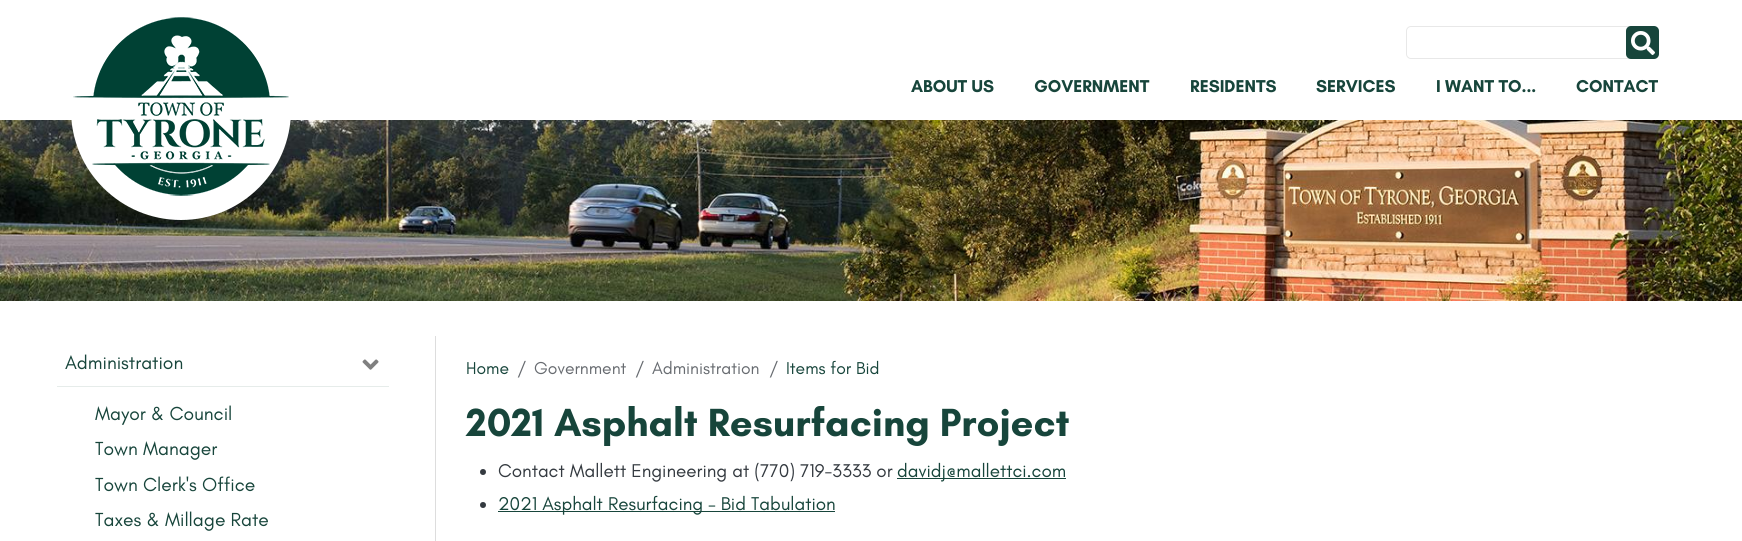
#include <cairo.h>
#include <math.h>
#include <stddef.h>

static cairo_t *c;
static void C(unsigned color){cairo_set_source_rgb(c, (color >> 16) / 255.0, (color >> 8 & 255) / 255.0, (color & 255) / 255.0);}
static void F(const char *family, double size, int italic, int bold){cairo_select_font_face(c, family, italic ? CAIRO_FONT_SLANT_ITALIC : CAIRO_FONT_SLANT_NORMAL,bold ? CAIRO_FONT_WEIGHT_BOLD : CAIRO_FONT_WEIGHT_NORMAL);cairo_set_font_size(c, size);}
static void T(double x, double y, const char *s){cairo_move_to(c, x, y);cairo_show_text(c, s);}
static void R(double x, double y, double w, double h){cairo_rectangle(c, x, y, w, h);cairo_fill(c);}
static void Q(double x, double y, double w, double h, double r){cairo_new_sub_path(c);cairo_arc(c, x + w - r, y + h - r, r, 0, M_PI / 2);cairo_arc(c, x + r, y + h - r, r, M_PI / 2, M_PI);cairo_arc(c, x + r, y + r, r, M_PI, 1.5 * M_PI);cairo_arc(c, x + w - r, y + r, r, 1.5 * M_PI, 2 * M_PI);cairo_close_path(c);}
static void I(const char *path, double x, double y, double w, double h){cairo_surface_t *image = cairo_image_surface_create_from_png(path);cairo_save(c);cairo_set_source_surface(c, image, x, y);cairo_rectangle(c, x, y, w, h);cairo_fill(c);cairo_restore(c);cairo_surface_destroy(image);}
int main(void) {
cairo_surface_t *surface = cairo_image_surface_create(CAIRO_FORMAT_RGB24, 1742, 541);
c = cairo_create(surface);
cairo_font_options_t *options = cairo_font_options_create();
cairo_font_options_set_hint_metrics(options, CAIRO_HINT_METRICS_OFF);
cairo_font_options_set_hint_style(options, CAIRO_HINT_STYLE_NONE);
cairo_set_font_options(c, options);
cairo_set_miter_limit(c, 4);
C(0xffffff);
cairo_paint(c);
I("3.png",0,120,1742,181);
C(0xffffff);
cairo_arc(c,181,110,110,0,2 * M_PI);
cairo_fill(c);
I("1.png",73,17,216,179);
Q(1406.5,26.5,249,32,4.5);
C(0xe8e8e8);
cairo_set_line_width(c,1);
cairo_stroke(c);
C(0x17453b);
Q(1626,26,33,33,5);
cairo_fill(c);
I("2.png",1631,31,24,24);
F("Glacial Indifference",17.5,0,1);
T(911,92,"ABOUT US");
T(1034,92,"GOVERNMENT");
T(1190,92,"RESIDENTS");
T(1316,92,"SERVICES");
T(1436,92,"I WANT TO...");
T(1576,92,"CONTACT");
C(0xe6ecea);
R(57,386,332,1);
F("Glacial Indifference",19.25,0,0);
C(0x17453b);
T(65,369,"Administration");
I("4.png",362,359,17,11);
T(95,420,"Mayor & Council");
T(95,455,"Town Manager");
T(95,491,"Town Clerk's Office");
T(95,526,"Taxes & Millage Rate");
C(0xdddddd);
R(435,336,1,205);
F("Glacial Indifference",17.5,0,0);
C(0x17453b);
T(466,374,"Home");
C(0x676b70);
T(517,374,"/");
T(534,374,"Government");
T(635,374,"/");
T(652,374,"Administration");
T(769,374,"/");
C(0x17453b);
T(786,374,"Items for Bid");
F("Glacial Indifference",40,0,1);
T(466,436,"2021 Asphalt Resurfacing Project");
C(0x343a40);
cairo_new_path(c);
cairo_arc(c,483,472,3,0,2 * M_PI);
cairo_fill(c);
F("Glacial Indifference",18.85,0,0);
T(498,477,"Contact Mallett Engineering at (770) 719-3333 or");
C(0x17453b);
R(897,478,169,1);
T(897,477,"davidj@mallettci.com");
C(0x343a40);
cairo_new_path(c);
cairo_arc(c,483,505,3,0,2 * M_PI);
cairo_fill(c);
C(0x17453b);
R(498,511,337,1);
T(498,510,"2021 Asphalt Resurfacing – Bid Tabulation");
cairo_surface_write_to_png(surface, "o.png");
cairo_font_options_destroy(options);
cairo_destroy(c);
cairo_surface_destroy(surface);
return 0;
}
